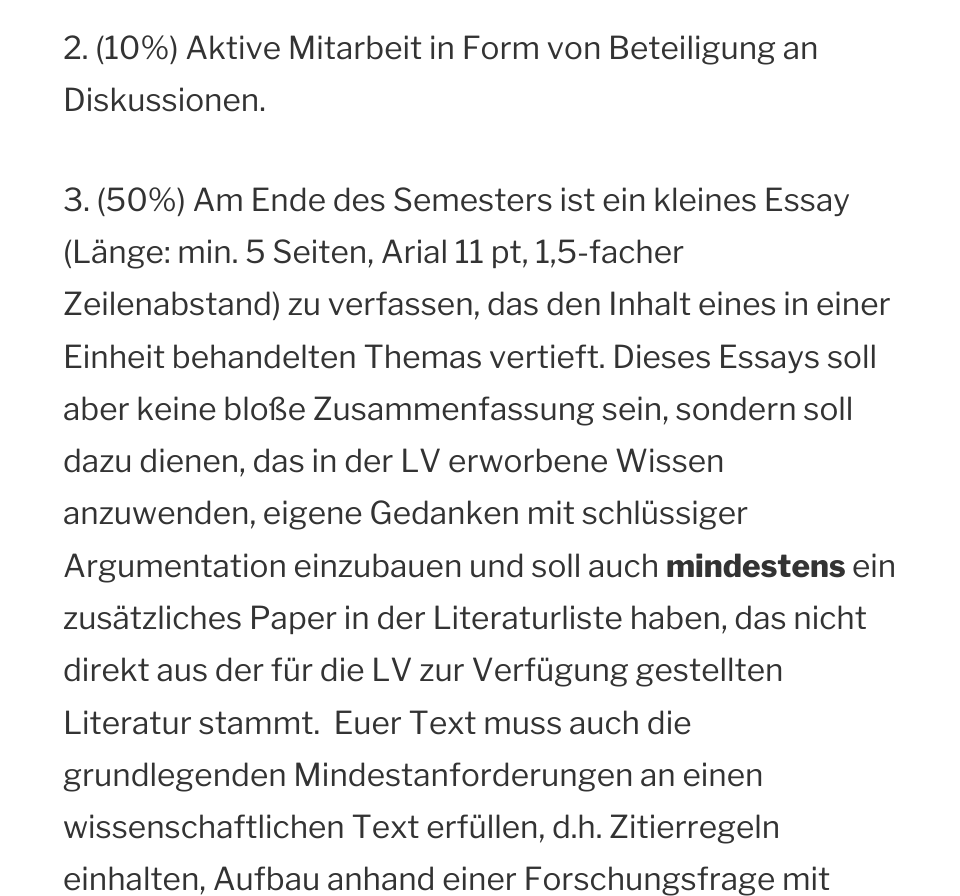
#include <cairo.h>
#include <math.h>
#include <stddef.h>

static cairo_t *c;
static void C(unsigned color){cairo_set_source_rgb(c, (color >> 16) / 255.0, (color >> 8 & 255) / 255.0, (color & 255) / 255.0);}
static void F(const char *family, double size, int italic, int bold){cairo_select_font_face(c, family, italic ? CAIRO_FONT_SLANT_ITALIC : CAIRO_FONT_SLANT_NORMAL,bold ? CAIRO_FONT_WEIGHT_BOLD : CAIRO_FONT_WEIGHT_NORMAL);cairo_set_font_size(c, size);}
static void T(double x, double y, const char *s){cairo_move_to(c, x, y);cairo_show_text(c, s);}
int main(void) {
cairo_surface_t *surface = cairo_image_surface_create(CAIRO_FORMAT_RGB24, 960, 896);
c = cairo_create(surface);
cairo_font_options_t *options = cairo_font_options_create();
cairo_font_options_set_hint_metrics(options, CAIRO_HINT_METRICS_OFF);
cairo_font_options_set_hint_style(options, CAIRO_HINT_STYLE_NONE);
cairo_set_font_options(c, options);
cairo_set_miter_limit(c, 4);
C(0xffffff);
cairo_paint(c);
F("Libre Franklin Thin",31.5,0,0);
C(0x333333);
T(63,59,"2. (10%) Aktive Mitarbeit in Form von Beteiligung an");
T(63,111,"Diskussionen.");
T(63,211,"3. (50%) Am Ende des Semesters ist ein kleines Essay");
T(63,263,"(Länge: min. 5 Seiten, Arial 11 pt, 1,5-facher");
T(63,315,"Zeilenabstand) zu verfassen, das den Inhalt eines in einer");
T(63,368,"Einheit behandelten Themas vertieft. Dieses Essays soll");
T(63,420,"aber keine bloße Zusammenfassung sein, sondern soll");
T(63,472,"dazu dienen, das in der LV erworbene Wissen");
T(63,524,"anzuwenden, eigene Gedanken mit schlüssiger");
T(63,577,"Argumentation einzubauen und soll auch");
F("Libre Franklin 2 Thin",31.5,0,0);
T(666,577,"mindestens");
F("Libre Franklin Thin",31.5,0,0);
T(852,577,"ein");
T(63,629,"zusätzliches Paper in der Literaturliste haben, das nicht");
T(63,681,"direkt aus der für die LV zur Verfügung gestellten");
T(63,734,"Literatur stammt.  Euer Text muss auch die");
T(63,786,"grundlegenden Mindestanforderungen an einen");
T(63,838,"wissenschaftlichen Text erfüllen, d.h. Zitierregeln");
T(63,890,"einhalten, Aufbau anhand einer Forschungsfrage mit");
cairo_surface_write_to_png(surface, "o.png");
cairo_font_options_destroy(options);
cairo_destroy(c);
cairo_surface_destroy(surface);
return 0;
}
